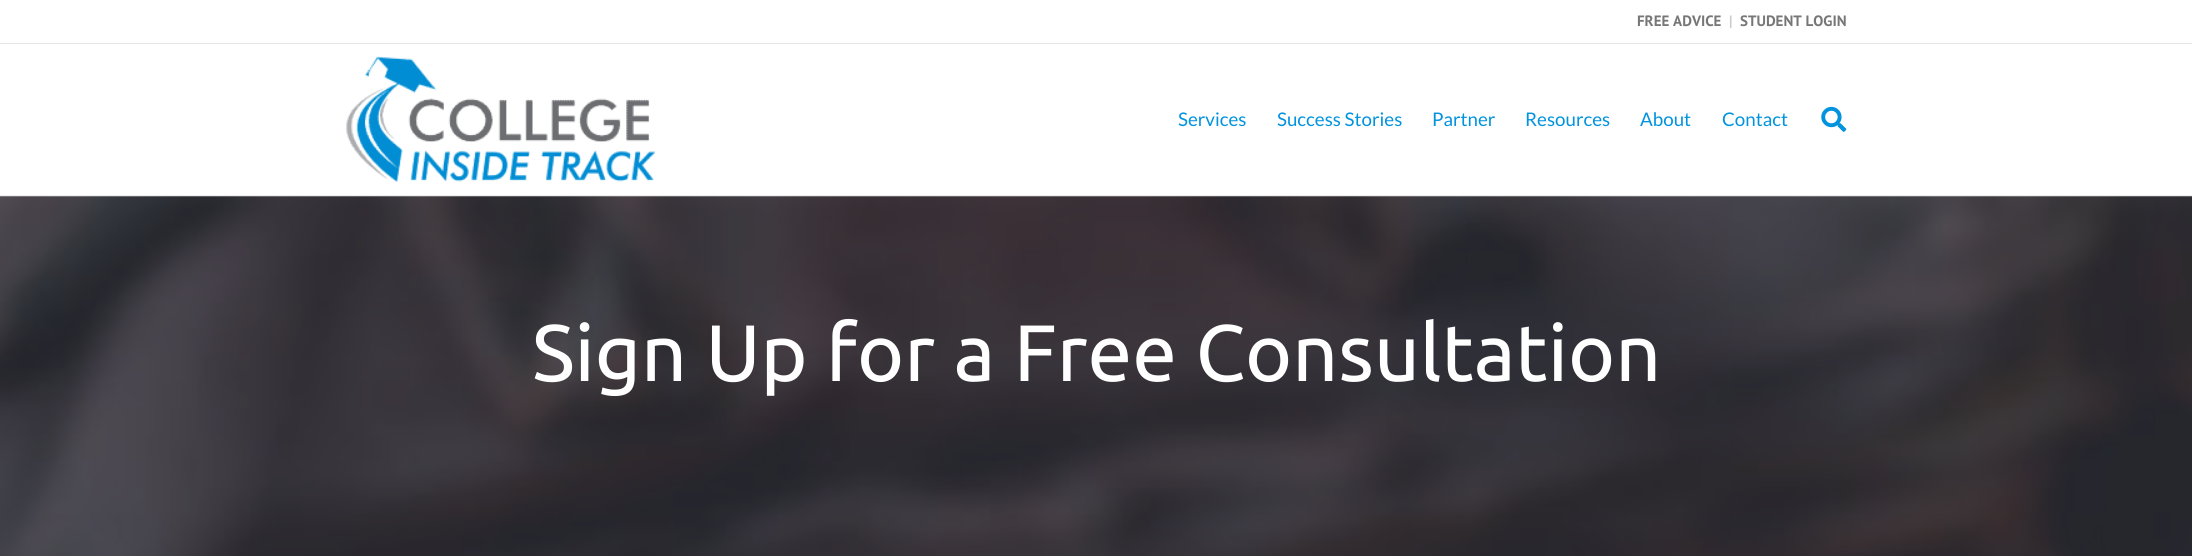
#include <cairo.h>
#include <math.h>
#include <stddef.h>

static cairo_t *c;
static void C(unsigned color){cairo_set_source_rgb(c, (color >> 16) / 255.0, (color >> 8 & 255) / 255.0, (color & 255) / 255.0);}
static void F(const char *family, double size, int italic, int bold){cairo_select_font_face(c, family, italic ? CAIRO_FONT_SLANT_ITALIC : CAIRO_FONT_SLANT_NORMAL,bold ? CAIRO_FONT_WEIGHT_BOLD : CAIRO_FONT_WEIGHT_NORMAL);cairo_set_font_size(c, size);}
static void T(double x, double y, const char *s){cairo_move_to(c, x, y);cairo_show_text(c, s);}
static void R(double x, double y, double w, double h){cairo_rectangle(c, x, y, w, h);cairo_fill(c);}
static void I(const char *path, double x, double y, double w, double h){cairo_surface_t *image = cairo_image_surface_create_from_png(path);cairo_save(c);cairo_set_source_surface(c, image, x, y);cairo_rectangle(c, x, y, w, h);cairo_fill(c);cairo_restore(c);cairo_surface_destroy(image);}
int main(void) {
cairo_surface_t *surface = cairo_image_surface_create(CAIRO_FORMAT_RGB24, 2192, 556);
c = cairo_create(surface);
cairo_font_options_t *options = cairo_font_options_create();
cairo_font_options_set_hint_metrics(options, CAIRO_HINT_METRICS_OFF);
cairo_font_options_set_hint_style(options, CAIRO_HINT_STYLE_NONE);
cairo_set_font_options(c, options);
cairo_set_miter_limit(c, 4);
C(0xffffff);
cairo_paint(c);
C(0xe6e6e6);
R(0,43,2192,1);
F("PT Sans",15,0,1);
C(0x777777);
T(1637,26,"FREE ADVICE");
C(0xcccccc);
T(1729,26,"|");
C(0x777777);
T(1740,26,"STUDENT LOGIN");
C(0xeeeeee);
R(0,195,2192,1);
I("1.png",346,56,309,126);
F("Lato",18.75,0,0);
C(0x0193de);
T(1178,126,"Services");
T(1277,126,"Success Stories");
T(1432,126,"Partner");
T(1525,126,"Resources");
T(1640,126,"About");
T(1722,126,"Contact");
I("2.png",1821,106,26,26);
I("3.png",0,196,2192,360);
F("Ubuntu",80,0,0);
C(0xffffff);
T(532,381,"Sign Up for a Free Consultation");
cairo_surface_write_to_png(surface, "o.png");
cairo_font_options_destroy(options);
cairo_destroy(c);
cairo_surface_destroy(surface);
return 0;
}
